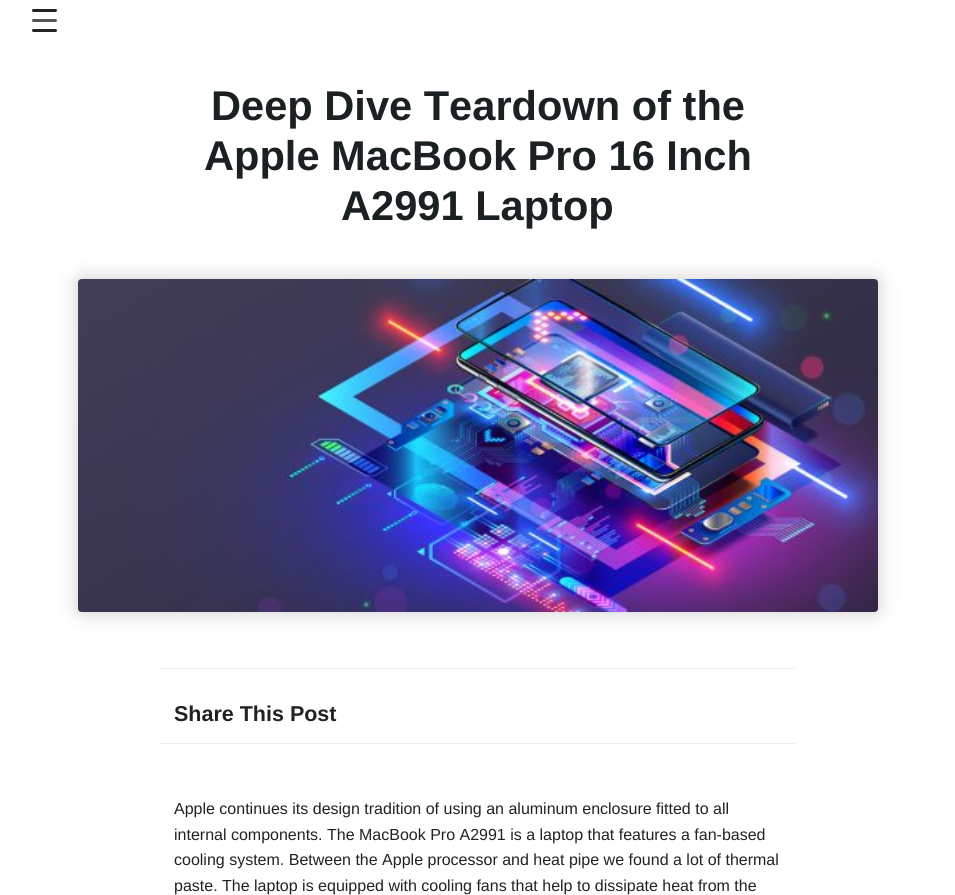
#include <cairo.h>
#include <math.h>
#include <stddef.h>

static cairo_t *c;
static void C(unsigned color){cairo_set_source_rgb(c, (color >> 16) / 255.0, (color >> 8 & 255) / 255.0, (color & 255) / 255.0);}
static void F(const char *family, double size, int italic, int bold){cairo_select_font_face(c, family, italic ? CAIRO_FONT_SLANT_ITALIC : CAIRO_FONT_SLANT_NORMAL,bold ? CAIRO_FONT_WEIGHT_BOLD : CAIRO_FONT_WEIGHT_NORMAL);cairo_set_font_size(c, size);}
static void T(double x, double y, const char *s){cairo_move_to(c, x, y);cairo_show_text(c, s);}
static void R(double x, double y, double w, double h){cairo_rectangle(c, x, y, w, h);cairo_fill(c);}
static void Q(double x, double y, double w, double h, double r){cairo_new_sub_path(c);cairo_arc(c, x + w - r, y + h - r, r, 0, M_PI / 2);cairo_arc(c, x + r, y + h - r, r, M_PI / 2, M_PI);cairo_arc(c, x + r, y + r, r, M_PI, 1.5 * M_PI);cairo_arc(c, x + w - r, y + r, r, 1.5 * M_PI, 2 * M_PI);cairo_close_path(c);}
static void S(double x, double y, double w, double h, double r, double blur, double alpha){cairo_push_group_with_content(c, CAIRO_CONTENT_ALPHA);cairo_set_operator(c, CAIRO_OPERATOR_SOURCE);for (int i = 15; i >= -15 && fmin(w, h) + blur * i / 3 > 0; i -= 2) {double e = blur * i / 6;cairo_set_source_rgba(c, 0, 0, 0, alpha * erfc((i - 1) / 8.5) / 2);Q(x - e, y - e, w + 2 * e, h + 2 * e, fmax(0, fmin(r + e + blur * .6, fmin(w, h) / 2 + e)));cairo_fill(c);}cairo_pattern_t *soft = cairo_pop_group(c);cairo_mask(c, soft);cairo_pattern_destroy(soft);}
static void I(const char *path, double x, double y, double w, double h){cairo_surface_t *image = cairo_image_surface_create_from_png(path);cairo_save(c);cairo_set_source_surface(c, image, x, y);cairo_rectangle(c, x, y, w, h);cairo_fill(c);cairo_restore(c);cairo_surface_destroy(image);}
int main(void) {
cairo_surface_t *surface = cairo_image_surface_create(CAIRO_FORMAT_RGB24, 955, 895);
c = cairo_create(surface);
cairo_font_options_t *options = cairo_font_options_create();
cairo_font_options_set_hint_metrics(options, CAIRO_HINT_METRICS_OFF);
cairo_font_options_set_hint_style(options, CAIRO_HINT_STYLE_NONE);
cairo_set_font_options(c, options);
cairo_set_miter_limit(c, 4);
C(0xffffff);
cairo_paint(c);
C(0x555555);
Q(32,19,25,3,1.5);
cairo_fill(c);
C(0x222222);
Q(32,9,25,3,1.5);
cairo_fill(c);
Q(32,29,25,3,1.5);
cairo_fill(c);
F("Liberation Sans",41.6,0,1);
C(0x1b2023);
T(211,120,"Deep Dive Teardown of the");
T(204,170,"Apple MacBook Pro 16 Inch");
T(341,220,"A2991 Laptop");
C(0x000000);
S(78,279,800,333,4,10,.2);
I("1.png",78,279,800,333);
C(0xefefef);
R(159,668,637,1);
R(159,743,637,1);
F("Liberation Sans",21.5,0,1);
C(0x222222);
T(174,721,"Share This Post");
F("Liberation Sans",16,0,0);
T(174,814,"Apple continues its design tradition of using an aluminum enclosure fitted to all");
T(174,840,"internal components. The MacBook Pro A2991 is a laptop that features a fan-based");
T(174,865,"cooling system. Between the Apple processor and heat pipe we found a lot of thermal");
T(174,891,"paste. The laptop is equipped with cooling fans that help to dissipate heat from the");
cairo_surface_write_to_png(surface, "o.png");
cairo_font_options_destroy(options);
cairo_destroy(c);
cairo_surface_destroy(surface);
return 0;
}
